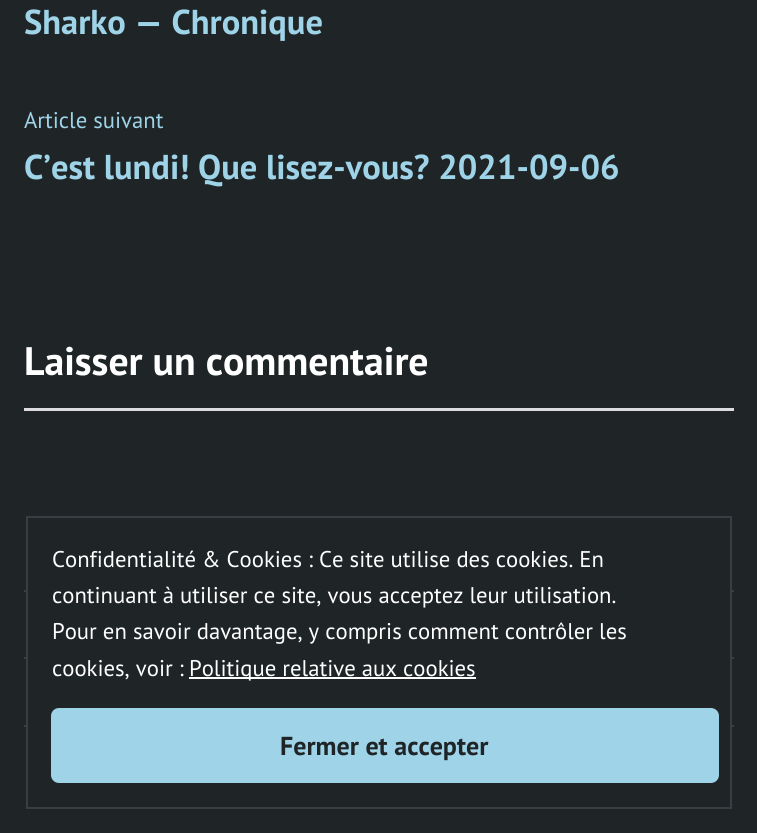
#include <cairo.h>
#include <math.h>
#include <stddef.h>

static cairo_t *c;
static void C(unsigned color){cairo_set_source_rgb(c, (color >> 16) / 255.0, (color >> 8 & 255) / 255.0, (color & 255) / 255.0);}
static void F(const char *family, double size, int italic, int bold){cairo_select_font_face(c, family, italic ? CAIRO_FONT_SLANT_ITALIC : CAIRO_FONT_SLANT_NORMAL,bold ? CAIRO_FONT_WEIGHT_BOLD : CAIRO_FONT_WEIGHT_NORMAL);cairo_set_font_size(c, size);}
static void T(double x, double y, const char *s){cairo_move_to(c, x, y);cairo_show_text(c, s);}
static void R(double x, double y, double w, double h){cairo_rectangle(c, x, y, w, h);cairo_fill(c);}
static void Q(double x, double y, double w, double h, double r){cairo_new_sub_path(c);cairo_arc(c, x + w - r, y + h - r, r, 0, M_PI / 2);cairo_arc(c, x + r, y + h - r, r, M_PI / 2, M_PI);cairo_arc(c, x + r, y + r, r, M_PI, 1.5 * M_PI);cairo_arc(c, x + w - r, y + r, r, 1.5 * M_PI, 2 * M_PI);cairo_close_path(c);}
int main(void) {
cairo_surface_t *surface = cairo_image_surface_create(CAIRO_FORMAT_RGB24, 757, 833);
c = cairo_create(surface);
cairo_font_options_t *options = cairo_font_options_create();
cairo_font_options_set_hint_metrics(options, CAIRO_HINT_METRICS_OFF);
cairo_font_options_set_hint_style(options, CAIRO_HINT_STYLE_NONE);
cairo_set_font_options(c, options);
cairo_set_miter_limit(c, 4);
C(0x1f2527);
cairo_paint(c);
F("PT Sans",34.5,0,1);
C(0x9fd3e8);
T(24,34,"Sharko — Chronique");
F("PT Sans",22.7,0,0);
T(24,128,"Article suivant");
F("PT Sans",34.5,0,1);
T(24,179,"C’est lundi! Que lisez-vous? 2021-09-06");
F("PT Sans",39.75,0,1);
C(0xffffff);
T(24,375,"Laisser un commentaire");
C(0xdcdcde);
R(24,408,710,3);
C(0x364043);
R(24,725,710,2);
R(24,590,710,2);
R(24,657,710,2);
C(0x1f2527);
R(28,590,702,137);
cairo_rectangle(c,27,517,704,291);
C(0x364043);
cairo_stroke(c);
F("PT Sans",22.7,0,0);
C(0xffffff);
T(52,567,"Confidentialité & Cookies : Ce site utilise des cookies. En");
T(52,603,"continuant à utiliser ce site, vous acceptez leur utilisation.");
T(52,639,"Pour en savoir davantage, y compris comment contrôler les");
T(52,676,"cookies, voir :");
R(189,677,287,2);
T(189,676,"Politique relative aux cookies");
C(0x9fd3e8);
Q(51,708,668,75,8);
cairo_fill(c);
F("PT Sans",26,0,1);
C(0x1f2527);
T(280,755,"Fermer et accepter");
cairo_surface_write_to_png(surface, "o.png");
cairo_font_options_destroy(options);
cairo_destroy(c);
cairo_surface_destroy(surface);
return 0;
}
